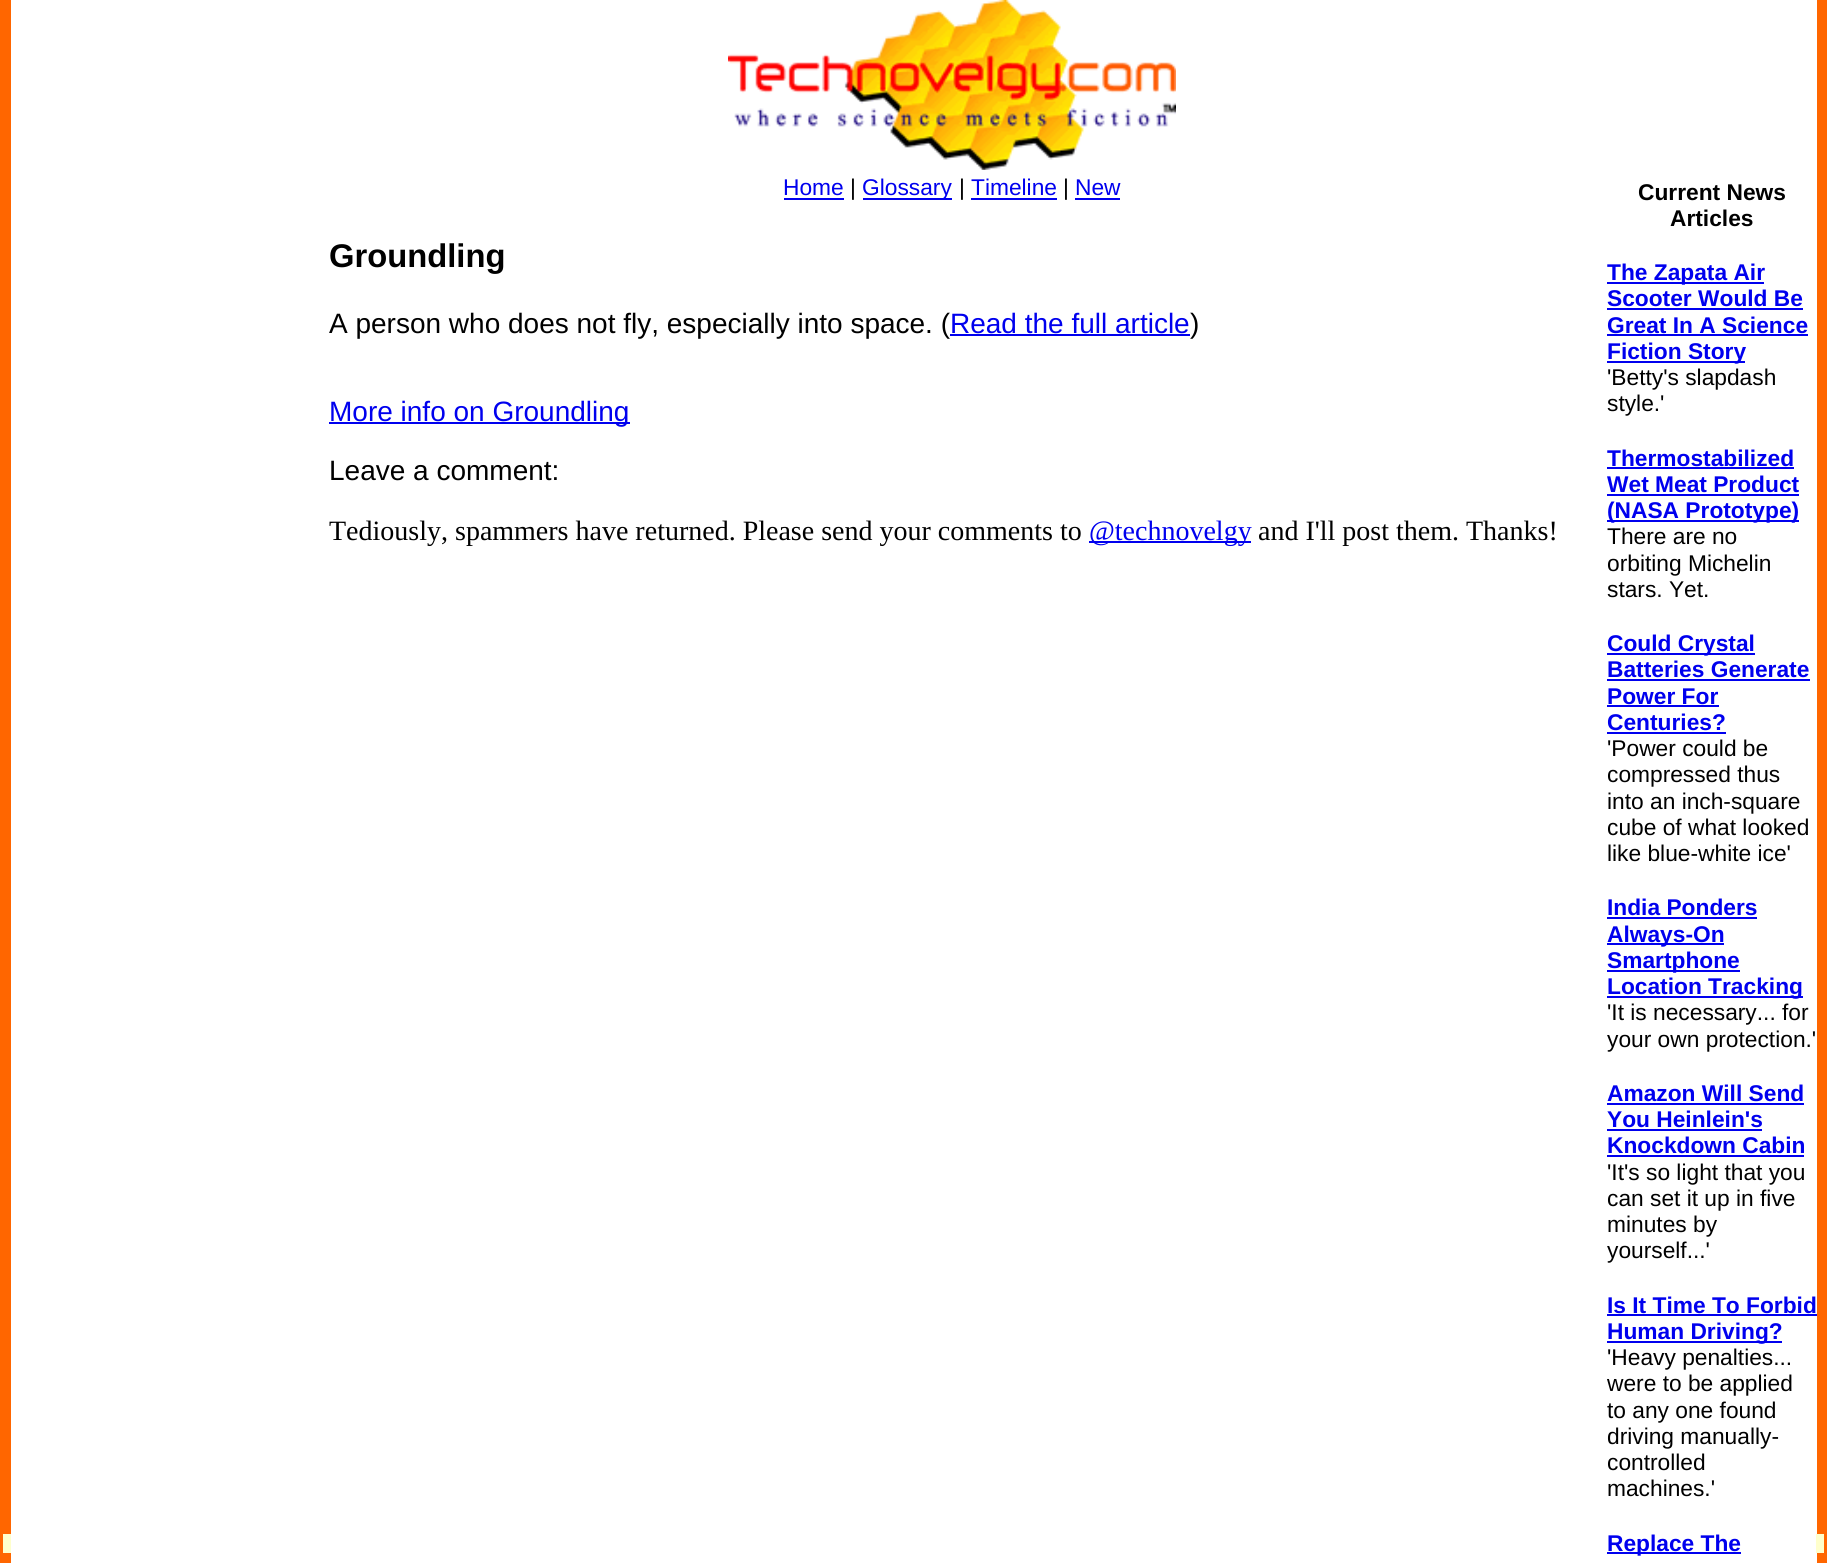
#include <cairo.h>
#include <math.h>
#include <stddef.h>

static cairo_t *c;
static void C(unsigned color){cairo_set_source_rgb(c, (color >> 16) / 255.0, (color >> 8 & 255) / 255.0, (color & 255) / 255.0);}
static void F(const char *family, double size, int italic, int bold){cairo_select_font_face(c, family, italic ? CAIRO_FONT_SLANT_ITALIC : CAIRO_FONT_SLANT_NORMAL,bold ? CAIRO_FONT_WEIGHT_BOLD : CAIRO_FONT_WEIGHT_NORMAL);cairo_set_font_size(c, size);}
static void T(double x, double y, const char *s){cairo_move_to(c, x, y);cairo_show_text(c, s);}
static void R(double x, double y, double w, double h){cairo_rectangle(c, x, y, w, h);cairo_fill(c);}
static void I(const char *path, double x, double y, double w, double h){cairo_surface_t *image = cairo_image_surface_create_from_png(path);cairo_save(c);cairo_set_source_surface(c, image, x, y);cairo_rectangle(c, x, y, w, h);cairo_fill(c);cairo_restore(c);cairo_surface_destroy(image);}
int main(void) {
cairo_surface_t *surface = cairo_image_surface_create(CAIRO_FORMAT_RGB24, 1827, 1563);
c = cairo_create(surface);
cairo_font_options_t *options = cairo_font_options_create();
cairo_font_options_set_hint_metrics(options, CAIRO_HINT_METRICS_OFF);
cairo_font_options_set_hint_style(options, CAIRO_HINT_STYLE_NONE);
cairo_set_font_options(c, options);
cairo_set_miter_limit(c, 4);
C(0xffffff);
cairo_paint(c);
C(0xff6600);
R(0,0,11,1563);
C(0xffffcc);
R(3,1534,8,19);
I("1.png",728,0,448,170);
F("Liberation Sans",22.75,0,0);
C(0x0000ee);
T(783,195,"Home");
R(784,198,60,2);
C(0x000000);
T(850,195,"|");
C(0x0000ee);
R(863,198,89,2);
T(862,195,"Glossary");
C(0x000000);
T(959,195,"|");
C(0x0000ee);
T(971,195,"Timeline");
R(971,198,86,2);
C(0x000000);
T(1063,195,"|");
C(0x0000ee);
T(1075,195,"New");
R(1075,198,45,2);
F("Liberation Sans",32.75,0,1);
C(0x000000);
T(329,267,"Groundling");
F("Liberation Sans",28,0,0);
T(329,333,"A person who does not fly, especially into space. (");
C(0x0000ee);
R(950,334,240,2);
T(950,333,"Read the full article");
C(0x000000);
T(1190,333,")");
C(0x0000ee);
R(329,422,301,2);
T(329,421,"More info on Groundling");
C(0x000000);
T(329,480,"Leave a comment:");
F("Liberation Serif",28,0,0);
T(329,540,"Tediously, spammers have returned. Please send your comments to");
C(0x0000ee);
R(1089,541,162,2);
T(1089,540,"@technovelgy");
C(0x000000);
T(1258,540,"and I'll post them. Thanks!");
F("Liberation Sans",22.75,0,1);
T(1638,200,"Current News");
T(1670,226,"Articles");
C(0x0000ee);
R(1607,282,157,2);
T(1607,280,"The Zapata Air");
T(1607,306,"Scooter Would Be");
R(1607,308,196,2);
T(1607,333,"Great In A Science");
R(1607,334,201,2);
R(1607,361,138,2);
T(1607,359,"Fiction Story");
F("Liberation Sans",22.75,0,0);
C(0x000000);
T(1607,385,"'Betty's slapdash");
T(1607,411,"style.'");
F("Liberation Sans",22.75,0,1);
C(0x0000ee);
T(1607,466,"Thermostabilized");
R(1607,467,187,2);
T(1607,492,"Wet Meat Product");
R(1607,494,192,2);
R(1607,520,192,2);
T(1607,518,"(NASA Prototype)");
F("Liberation Sans",22.75,0,0);
C(0x000000);
T(1607,544,"There are no");
T(1607,571,"orbiting Michelin");
T(1607,597,"stars. Yet.");
C(0x0000ee);
R(1607,653,148,2);
F("Liberation Sans",22.75,0,1);
T(1607,651,"Could Crystal");
T(1607,677,"Batteries Generate");
R(1607,679,203,2);
T(1607,704,"Power For");
R(1607,705,112,2);
T(1607,730,"Centuries?");
R(1607,732,119,2);
F("Liberation Sans",22.75,0,0);
C(0x000000);
T(1607,756,"'Power could be");
T(1607,782,"compressed thus");
T(1607,809,"into an inch-square");
T(1607,835,"cube of what looked");
T(1607,861,"like blue-white ice'");
F("Liberation Sans",22.75,0,1);
C(0x0000ee);
T(1607,915,"India Ponders");
R(1607,917,150,2);
R(1607,943,117,2);
T(1607,942,"Always-On");
R(1607,970,133,2);
T(1607,968,"Smartphone");
R(1607,996,196,2);
T(1607,994,"Location Tracking");
F("Liberation Sans",22.75,0,0);
C(0x000000);
T(1607,1020,"'It is necessary... for");
T(1607,1047,"your own protection.'");
F("Liberation Sans",22.75,0,1);
C(0x0000ee);
T(1607,1101,"Amazon Will Send");
R(1607,1103,197,2);
T(1607,1127,"You Heinlein's");
R(1607,1129,155,2);
T(1607,1153,"Knockdown Cabin");
R(1607,1155,197,2);
F("Liberation Sans",22.75,0,0);
C(0x000000);
T(1607,1180,"'It's so light that you");
T(1607,1206,"can set it up in five");
T(1607,1232,"minutes by");
T(1607,1258,"yourself...'");
F("Liberation Sans",22.75,0,1);
C(0x0000ee);
T(1607,1313,"Is It Time To Forbid");
R(1607,1314,210,2);
R(1607,1341,175,2);
T(1607,1339,"Human Driving?");
F("Liberation Sans",22.75,0,0);
C(0x000000);
T(1607,1365,"'Heavy penalties...");
T(1607,1391,"were to be applied");
T(1607,1418,"to any one found");
T(1607,1444,"driving manually-");
T(1607,1470,"controlled");
T(1607,1496,"machines.'");
C(0x0000ee);
R(1607,1552,134,2);
F("Liberation Sans",22.75,0,1);
T(1607,1551,"Replace The");
C(0xff6600);
R(1817,0,10,1563);
C(0xffffcc);
R(1816,1534,8,19);
cairo_surface_write_to_png(surface, "o.png");
cairo_font_options_destroy(options);
cairo_destroy(c);
cairo_surface_destroy(surface);
return 0;
}
